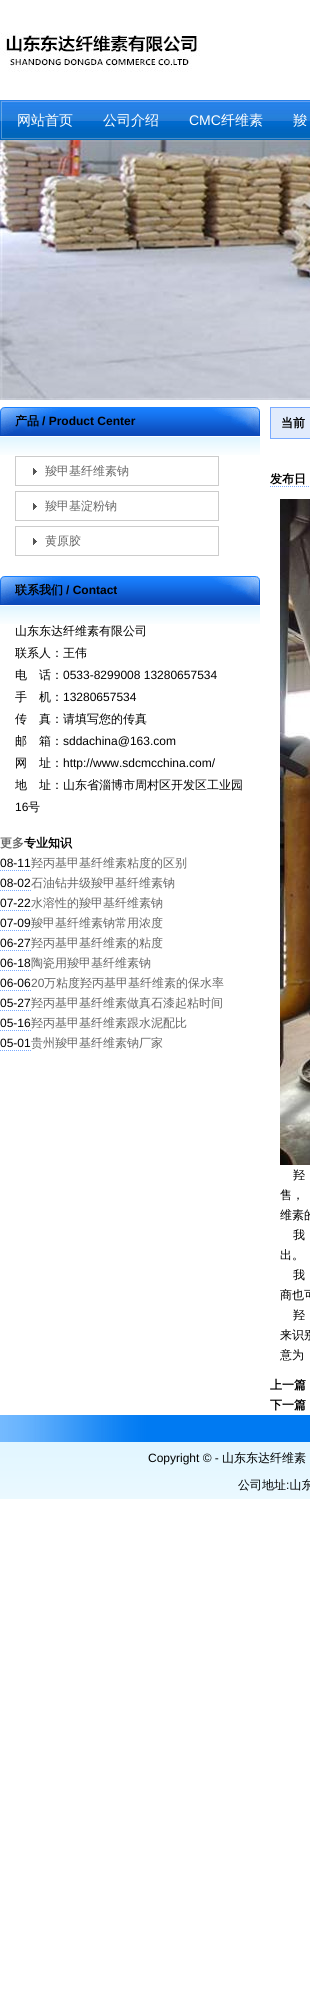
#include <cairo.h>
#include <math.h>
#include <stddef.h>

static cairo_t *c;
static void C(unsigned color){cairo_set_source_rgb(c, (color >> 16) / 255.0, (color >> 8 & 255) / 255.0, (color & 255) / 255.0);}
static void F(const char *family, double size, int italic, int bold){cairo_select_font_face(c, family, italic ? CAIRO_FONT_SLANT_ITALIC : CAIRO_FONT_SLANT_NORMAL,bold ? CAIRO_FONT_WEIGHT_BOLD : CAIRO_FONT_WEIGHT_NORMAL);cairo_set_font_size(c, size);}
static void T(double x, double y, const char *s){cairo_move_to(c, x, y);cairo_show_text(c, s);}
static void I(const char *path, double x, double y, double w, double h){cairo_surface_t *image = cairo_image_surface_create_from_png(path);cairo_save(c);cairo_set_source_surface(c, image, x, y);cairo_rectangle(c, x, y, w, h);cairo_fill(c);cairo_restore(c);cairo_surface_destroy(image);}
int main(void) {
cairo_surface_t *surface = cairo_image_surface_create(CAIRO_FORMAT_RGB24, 310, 1991);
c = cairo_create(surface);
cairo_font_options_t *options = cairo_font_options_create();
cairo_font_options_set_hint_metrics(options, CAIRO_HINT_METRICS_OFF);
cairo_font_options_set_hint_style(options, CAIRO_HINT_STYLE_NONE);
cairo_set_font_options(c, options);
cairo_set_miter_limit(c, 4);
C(0xffffff);
cairo_paint(c);
I("1.png",0,32,200,40);
I("2.png",0,100,310,40);
I("3.png",0,100,2,39);
F("WenQuanYi Zen Hei Medium",14,0,0);
C(0xffffff);
T(17,125,"网站首页");
T(103,125,"公司介绍");
F("Liberation Sans",14,0,0);
T(189,125,"CMC");
F("WenQuanYi Zen Hei Medium",14,0,0);
T(221,125,"纤维素");
T(293,125,"羧");
I("4.png",0,140,310,260);
I("5.png",0,407,260,29);
I("6.png",0,407,61,28);
F("WenQuanYi Zen Hei",12,0,1);
C(0x000000);
T(15,425,"产品");
F("Liberation Sans",12,0,1);
T(42,425,"/ Product Center");
I("7.png",0,437,260,18);
I("8.png",15,456,204,30);
F("WenQuanYi Zen Hei Medium",12,0,0);
C(0x666666);
T(45,475,"羧甲基纤维素钠");
I("8.png",15,491,204,30);
T(45,510,"羧甲基淀粉钠");
I("8.png",15,526,204,30);
T(45,545,"黄原胶");
I("5.png",0,576,260,29);
I("6.png",0,576,61,28);
F("WenQuanYi Zen Hei",12,0,1);
C(0x000000);
T(15,594,"联系我们");
F("Liberation Sans",12,0,1);
T(66,594,"/ Contact");
I("7.png",0,606,260,18);
F("WenQuanYi Zen Hei Medium",12,0,0);
T(15,635,"山东东达纤维素有限公司");
T(15,657,"联系人：王伟");
T(15,679,"电　话：");
F("Liberation Sans",12,0,0);
T(63,679,"0533-8299008 13280657534");
F("WenQuanYi Zen Hei Medium",12,0,0);
T(15,701,"手　机：");
F("Liberation Sans",12,0,0);
T(63,701,"13280657534");
F("WenQuanYi Zen Hei Medium",12,0,0);
T(15,723,"传　真：请填写您的传真");
T(15,745,"邮　箱：");
F("Liberation Sans",12,0,0);
T(63,745,"sddachina@163.com");
F("WenQuanYi Zen Hei Medium",12,0,0);
T(15,767,"网　址：");
F("Liberation Sans",12,0,0);
T(63,767,"http://www.sdcmcchina.com/");
F("WenQuanYi Zen Hei Medium",12,0,0);
T(15,789,"地　址：山东省淄博市周村区开发区工业园");
F("Liberation Sans",12,0,0);
T(15,811,"16");
F("WenQuanYi Zen Hei Medium",12,0,0);
T(28,811,"号");
F("WenQuanYi Zen Hei",12,0,1);
C(0x666666);
T(0,847,"更多");
C(0x000000);
T(24,847,"专业知识");
F("Liberation Sans",12,0,0);
T(0,867,"08-11");
cairo_new_path(c);
cairo_move_to(c,0,870.5);
cairo_line_to(c,31,870.5);
C(0x7aabff);
cairo_set_line_width(c,1);
cairo_set_dash(c,(double[]){1,1},2,0);
cairo_stroke(c);
F("WenQuanYi Zen Hei Medium",12,0,0);
C(0x666666);
T(31,867,"羟丙基甲基纤维素粘度的区别");
F("Liberation Sans",12,0,0);
C(0x000000);
T(0,887,"08-02");
cairo_new_path(c);
cairo_move_to(c,0,890.5);
cairo_line_to(c,31,890.5);
C(0x7aabff);
cairo_stroke(c);
F("WenQuanYi Zen Hei Medium",12,0,0);
C(0x666666);
T(31,887,"石油钻井级羧甲基纤维素钠");
F("Liberation Sans",12,0,0);
C(0x000000);
T(0,907,"07-22");
cairo_new_path(c);
cairo_move_to(c,0,910.5);
cairo_line_to(c,31,910.5);
C(0x7aabff);
cairo_stroke(c);
F("WenQuanYi Zen Hei Medium",12,0,0);
C(0x666666);
T(31,907,"水溶性的羧甲基纤维素钠");
F("Liberation Sans",12,0,0);
C(0x000000);
T(0,927,"07-09");
cairo_new_path(c);
cairo_move_to(c,0,930.5);
cairo_line_to(c,31,930.5);
C(0x7aabff);
cairo_stroke(c);
F("WenQuanYi Zen Hei Medium",12,0,0);
C(0x666666);
T(31,927,"羧甲基纤维素钠常用浓度");
F("Liberation Sans",12,0,0);
C(0x000000);
T(0,947,"06-27");
cairo_new_path(c);
cairo_move_to(c,0,950.5);
cairo_line_to(c,31,950.5);
C(0x7aabff);
cairo_stroke(c);
F("WenQuanYi Zen Hei Medium",12,0,0);
C(0x666666);
T(31,947,"羟丙基甲基纤维素的粘度");
F("Liberation Sans",12,0,0);
C(0x000000);
T(0,967,"06-18");
cairo_new_path(c);
cairo_move_to(c,0,970.5);
cairo_line_to(c,31,970.5);
C(0x7aabff);
cairo_stroke(c);
F("WenQuanYi Zen Hei Medium",12,0,0);
C(0x666666);
T(31,967,"陶瓷用羧甲基纤维素钠");
F("Liberation Sans",12,0,0);
C(0x000000);
T(0,987,"06-06");
cairo_new_path(c);
cairo_move_to(c,0,990.5);
cairo_line_to(c,31,990.5);
C(0x7aabff);
cairo_stroke(c);
C(0x666666);
T(31,987,"20");
F("WenQuanYi Zen Hei Medium",12,0,0);
T(44,987,"万粘度羟丙基甲基纤维素的保水率");
F("Liberation Sans",12,0,0);
C(0x000000);
T(0,1007,"05-27");
cairo_new_path(c);
cairo_move_to(c,0,1010.5);
cairo_line_to(c,31,1010.5);
C(0x7aabff);
cairo_stroke(c);
F("WenQuanYi Zen Hei Medium",12,0,0);
C(0x666666);
T(31,1007,"羟丙基甲基纤维素做真石漆起粘时间");
F("Liberation Sans",12,0,0);
C(0x000000);
T(0,1027,"05-16");
cairo_new_path(c);
cairo_move_to(c,0,1030.5);
cairo_line_to(c,31,1030.5);
C(0x7aabff);
cairo_stroke(c);
F("WenQuanYi Zen Hei Medium",12,0,0);
C(0x666666);
T(31,1027,"羟丙基甲基纤维素跟水泥配比");
F("Liberation Sans",12,0,0);
C(0x000000);
T(0,1047,"05-01");
cairo_new_path(c);
cairo_move_to(c,0,1050.5);
cairo_line_to(c,31,1050.5);
C(0x7aabff);
cairo_stroke(c);
F("WenQuanYi Zen Hei Medium",12,0,0);
C(0x666666);
T(31,1047,"贵州羧甲基纤维素钠厂家");
C(0xe1ebfc);
cairo_rectangle(c,270.5,407.5,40,31);
cairo_fill_preserve(c);
C(0x7aabff);
cairo_set_dash(c,NULL,0,0);
cairo_stroke(c);
F("WenQuanYi Zen Hei",12,0,1);
C(0x000000);
T(281,427,"当前");
T(270,483,"发布日");
cairo_new_path(c);
cairo_move_to(c,270,486.5);
cairo_line_to(c,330,486.5);
C(0x7aabff);
cairo_set_dash(c,(double[]){1,1},2,0);
cairo_stroke(c);
I("9.png",280,499,30,666);
F("WenQuanYi Zen Hei Medium",12,0,0);
C(0x000000);
T(293,1179,"羟");
T(280,1199,"售，");
T(280,1219,"维素的");
T(293,1239,"我");
T(280,1259,"出。");
T(293,1279,"我");
T(280,1299,"商也可");
T(293,1319,"羟");
T(280,1339,"来识别");
T(280,1359,"意为");
F("WenQuanYi Zen Hei",12,0,1);
T(270,1389,"上一篇");
T(270,1409,"下一篇");
I("10.png",0,1415,310,27);
I("11.png",0,1442,310,57);
F("Liberation Sans",12,0,0);
T(148,1462,"Copyright © -");
F("WenQuanYi Zen Hei Medium",12,0,0);
T(222,1462,"山东东达纤维素");
T(238,1489,"公司地址 山东");
F("Liberation Sans",12,0,0);
T(286,1489,":");
cairo_surface_write_to_png(surface, "o.png");
cairo_font_options_destroy(options);
cairo_destroy(c);
cairo_surface_destroy(surface);
return 0;
}
